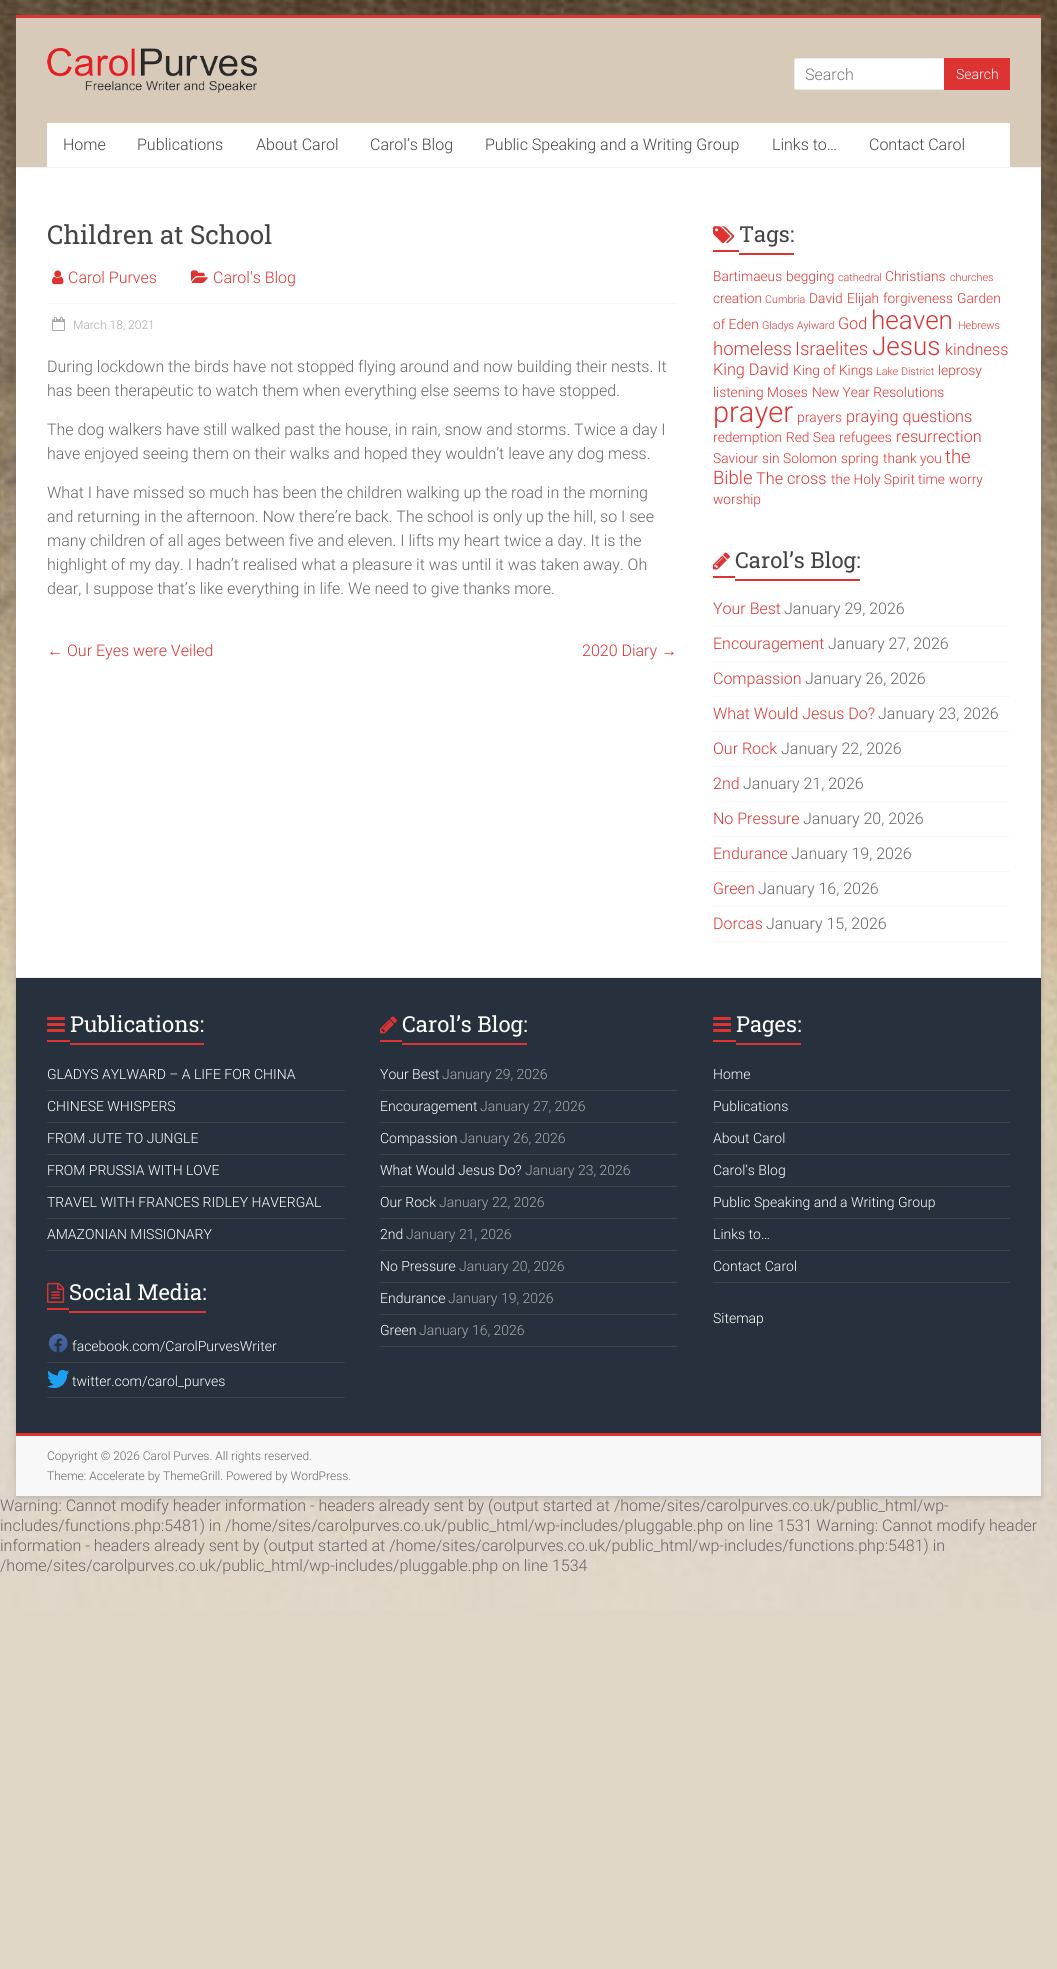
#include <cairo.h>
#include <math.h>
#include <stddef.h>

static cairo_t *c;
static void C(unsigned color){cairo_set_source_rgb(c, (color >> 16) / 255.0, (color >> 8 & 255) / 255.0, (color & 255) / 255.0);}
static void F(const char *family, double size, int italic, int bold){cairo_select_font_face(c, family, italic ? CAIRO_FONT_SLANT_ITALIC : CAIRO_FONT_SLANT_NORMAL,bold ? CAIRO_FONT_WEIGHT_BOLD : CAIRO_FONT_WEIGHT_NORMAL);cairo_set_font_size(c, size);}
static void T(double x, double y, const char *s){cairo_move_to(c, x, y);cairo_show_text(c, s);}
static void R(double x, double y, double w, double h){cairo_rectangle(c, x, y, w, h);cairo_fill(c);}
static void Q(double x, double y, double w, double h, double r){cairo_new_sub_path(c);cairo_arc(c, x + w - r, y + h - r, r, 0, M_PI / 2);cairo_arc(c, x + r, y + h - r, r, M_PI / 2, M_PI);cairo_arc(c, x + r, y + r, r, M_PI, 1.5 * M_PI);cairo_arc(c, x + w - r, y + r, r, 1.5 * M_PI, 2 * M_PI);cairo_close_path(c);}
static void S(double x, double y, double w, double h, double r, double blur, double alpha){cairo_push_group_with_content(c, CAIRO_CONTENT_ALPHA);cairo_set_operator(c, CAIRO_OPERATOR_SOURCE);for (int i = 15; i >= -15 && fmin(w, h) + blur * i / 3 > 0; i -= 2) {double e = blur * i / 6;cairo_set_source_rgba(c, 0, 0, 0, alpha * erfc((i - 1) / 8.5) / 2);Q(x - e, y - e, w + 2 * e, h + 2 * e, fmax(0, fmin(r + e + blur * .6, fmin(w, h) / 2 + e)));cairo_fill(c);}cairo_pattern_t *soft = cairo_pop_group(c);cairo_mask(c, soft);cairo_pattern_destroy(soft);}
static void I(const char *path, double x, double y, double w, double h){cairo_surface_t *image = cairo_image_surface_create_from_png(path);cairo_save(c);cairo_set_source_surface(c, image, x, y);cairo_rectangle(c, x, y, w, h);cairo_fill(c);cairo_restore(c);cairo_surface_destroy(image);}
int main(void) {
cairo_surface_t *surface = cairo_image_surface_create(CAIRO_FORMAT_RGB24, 1057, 1969);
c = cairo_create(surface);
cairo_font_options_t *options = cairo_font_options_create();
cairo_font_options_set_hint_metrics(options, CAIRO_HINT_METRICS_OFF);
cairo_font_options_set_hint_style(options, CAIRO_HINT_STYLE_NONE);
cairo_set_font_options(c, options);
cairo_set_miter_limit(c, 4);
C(0xe0d6c8);
cairo_paint(c);
I("1.png",0,0,1057,1611);
C(0x646464);
S(16,17,1025,1481,0,3,.3);
C(0xffffff);
R(16,168,1025,809);
C(0xdd3333);
R(16,15,1025,3);
C(0xd7cab8);
R(16,18,1025,149);
C(0xf2f2f2);
R(16,167,1025,1);
I("2.png",47,48,210,45);
C(0xffffff);
cairo_new_path(c);
cairo_move_to(c,797,58);
cairo_line_to(c,944,58);
cairo_line_to(c,944,90);
cairo_line_to(c,797,90);
cairo_curve_to(c,795.5,90,794,88.5,794,87);
cairo_line_to(c,794,61);
cairo_curve_to(c,794,59.5,795.5,58,797,58);
cairo_close_path(c);
cairo_fill(c);
C(0xeaeaea);
cairo_set_fill_rule(c,CAIRO_FILL_RULE_EVEN_ODD);
cairo_new_path(c);
cairo_move_to(c,797,58);
cairo_line_to(c,944,58);
cairo_line_to(c,944,90);
cairo_line_to(c,797,90);
cairo_curve_to(c,795,90,794,89,794,87);
cairo_line_to(c,794,61);
cairo_curve_to(c,794,59,795,58,797,58);
cairo_close_path(c);
cairo_move_to(c,797,59);
cairo_line_to(c,944,59);
cairo_line_to(c,944,89);
cairo_line_to(c,797,89);
cairo_curve_to(c,796,89,795,88,795,87);
cairo_line_to(c,795,61);
cairo_curve_to(c,795,60,796,59,797,59);
cairo_close_path(c);
cairo_fill(c);
F("Roboto Light",16,0,0);
C(0x757575);
T(805,80,"Search");
C(0xdd3333);
R(944,58,66,32);
F("Roboto Light",14,0,0);
C(0xffffff);
T(956,79,"Search");
R(47,123,963,44);
F("Roboto Light",16,0,0);
C(0x444444);
T(63,150,"Home");
T(137,150,"Publications");
T(256,150,"About Carol");
T(370,150,"Carol’s Blog");
T(485,150,"Public Speaking and a Writing Group");
T(772,150,"Links to…");
T(869,150,"Contact Carol");
F("Roboto Slab",26,0,0);
T(47,244,"Children at School");
I("3.png",52,270,12,15);
F("Roboto Light",16,0,0);
C(0xdd3333);
T(68,283,"Carol Purves");
I("4.png",191,270,17,13);
T(213,283,"Carol's Blog");
C(0xf8f8f8);
R(47,303,630,1);
I("5.png",52,317,13,14);
F("Roboto Light",12,0,0);
C(0xaaaaaa);
T(73,329,"March 18, 2021");
F("Roboto Light",16,0,0);
C(0x666666);
T(47,372,"During lockdown the birds have not stopped flying around and now building their nests. It");
T(47,396,"has been therapeutic to watch them when everything else seems to have stopped.");
T(47,435,"The dog walkers have still walked past the house, in rain, snow and storms. Twice a day I");
T(47,459,"have enjoyed seeing them on their walks and hoped they wouldn’t leave any dog mess.");
T(47,498,"What I have missed so much has been the children walking up the road in the morning");
T(47,522,"and returning in the afternoon. Now there’re back. The school is only up the hill, so I see");
T(47,546,"many children of all ages between five and eleven. I lifts my heart twice a day. It is the");
T(47,570,"highlight of my day. I hadn’t realised what a pleasure it was until it was taken away. Oh");
T(47,594,"dear, I suppose that’s like everything in life. We need to give thanks more.");
F("Liberation Sans",16,0,0);
C(0xdd3333);
T(47,656,"←");
F("Roboto Light",16,0,0);
T(67,656,"Our Eyes were Veiled");
T(582,656,"2020 Diary");
F("Liberation Sans",16,0,0);
T(661,656,"→");
I("6.png",713,226,22,18);
F("Roboto Slab",22,0,0);
C(0x444444);
T(739,242,"Tags:");
C(0xdd3333);
R(713,250,26,2);
R(739,253,55,2);
F("Roboto Light",13.75,0,0);
T(713,281,"Bartimaeus");
T(786,281,"begging");
F("Roboto Light",10.75,0,0);
T(838,281,"cathedral");
F("Roboto Light",13.75,0,0);
T(885,281,"Christians");
F("Roboto Light",10.75,0,0);
T(950,281,"churches");
F("Roboto Light",13.75,0,0);
T(713,303,"creation");
F("Roboto Light",10.75,0,0);
T(765,303,"Cumbria");
F("Roboto Light",13.75,0,0);
T(809,303,"David");
T(847,303,"Elijah");
T(883,303,"forgiveness");
T(957,303,"Garden");
T(713,329,"of Eden");
F("Roboto Light",10.75,0,0);
T(762,329,"Gladys Aylward");
F("Roboto Light",16.25,0,0);
T(838,329,"God");
F("Roboto Light",26,0,0);
T(871,329,"heaven");
F("Roboto Light",10.75,0,0);
T(958,329,"Hebrews");
F("Roboto Light",18.5,0,0);
T(713,355,"homeless");
T(795,355,"Israelites");
F("Roboto Light",26,0,0);
T(872,355,"Jesus");
F("Roboto Light",16.25,0,0);
T(945,355,"kindness");
T(713,375,"King David");
F("Roboto Light",13.75,0,0);
T(793,375,"King of Kings");
F("Roboto Light",10.75,0,0);
T(876,375,"Lake District");
F("Roboto Light",13.75,0,0);
T(938,375,"leprosy");
T(713,397,"listening");
T(767,397,"Moses");
T(812,397,"New Year Resolutions");
F("Roboto Light",29,0,0);
T(713,422,"prayer");
F("Roboto Light",13.75,0,0);
T(797,422,"prayers");
F("Roboto Light",16.25,0,0);
T(846,422,"praying questions");
F("Roboto Light",13.75,0,0);
T(713,442,"redemption");
T(786,442,"Red Sea");
T(839,442,"refugees");
F("Roboto Light",16.25,0,0);
T(896,442,"resurrection");
F("Roboto Light",13.75,0,0);
T(713,463,"Saviour");
T(762,463,"sin");
T(783,463,"Solomon");
T(841,463,"spring");
T(883,463,"thank you");
F("Roboto Light",18.5,0,0);
T(945,463,"the");
T(713,484,"Bible");
F("Roboto Light",16.25,0,0);
T(756,484,"The cross");
F("Roboto Light",13.75,0,0);
T(831,484,"the Holy Spirit");
T(918,484,"time");
T(949,484,"worry");
T(713,504,"worship");
I("7.png",713,552,17,18);
F("Roboto Slab",22,0,0);
C(0x444444);
T(735,568,"Carol’s Blog:");
C(0xdd3333);
R(713,576,22,2);
R(735,579,125,2);
C(0xf8f8f8);
R(713,626,297,1);
F("Roboto Light",16,0,0);
C(0xdd3333);
T(713,614,"Your Best");
C(0x666666);
T(784,614,"January 29, 2026");
C(0xf8f8f8);
R(713,661,297,1);
C(0xdd3333);
T(713,649,"Encouragement");
C(0x666666);
T(828,649,"January 27, 2026");
C(0xf8f8f8);
R(713,696,297,1);
C(0xdd3333);
T(713,684,"Compassion");
C(0x666666);
T(805,684,"January 26, 2026");
C(0xf8f8f8);
R(713,731,297,1);
C(0xdd3333);
T(713,719,"What Would Jesus Do?");
C(0x666666);
T(878,719,"January 23, 2026");
C(0xf8f8f8);
R(713,766,297,1);
C(0xdd3333);
T(713,754,"Our Rock");
C(0x666666);
T(781,754,"January 22, 2026");
C(0xf8f8f8);
R(713,801,297,1);
C(0xdd3333);
T(713,789,"2nd");
C(0x666666);
T(743,789,"January 21, 2026");
C(0xf8f8f8);
R(713,836,297,1);
C(0xdd3333);
T(713,824,"No Pressure");
C(0x666666);
T(803,824,"January 20, 2026");
C(0xf8f8f8);
R(713,871,297,1);
C(0xdd3333);
T(713,859,"Endurance");
C(0x666666);
T(791,859,"January 19, 2026");
C(0xf8f8f8);
R(713,906,297,1);
C(0xdd3333);
T(713,894,"Green");
C(0x666666);
T(758,894,"January 16, 2026");
C(0xf8f8f8);
R(713,941,297,1);
C(0xdd3333);
T(713,929,"Dorcas");
C(0x666666);
T(766,929,"January 15, 2026");
C(0x27313d);
R(16,978,1025,455);
C(0xf2f2f2);
R(16,977,1025,1);
I("8.png",47,1017,18,15);
F("Roboto Slab",22,0,0);
C(0xffffff);
T(70,1032,"Publications:");
C(0xdd3333);
R(47,1040,23,2);
R(70,1043,134,2);
C(0x444444);
R(47,1090,298,1);
F("Roboto Light",14,0,0);
C(0xffffff);
T(47,1079,"GLADYS AYLWARD – A LIFE FOR CHINA");
C(0x444444);
R(47,1122,298,1);
C(0xffffff);
T(47,1111,"CHINESE WHISPERS");
C(0x444444);
R(47,1154,298,1);
C(0xffffff);
T(47,1143,"FROM JUTE TO JUNGLE");
C(0x444444);
R(47,1186,298,1);
C(0xffffff);
T(47,1175,"FROM PRUSSIA WITH LOVE");
C(0x444444);
R(47,1218,298,1);
C(0xffffff);
T(47,1207,"TRAVEL WITH FRANCES RIDLEY HAVERGAL");
C(0x444444);
R(47,1250,298,1);
C(0xffffff);
T(47,1239,"AMAZONIAN MISSIONARY");
I("9.png",47,1282,18,21);
F("Roboto Slab",22,0,0);
T(69,1300,"Social Media:");
C(0xdd3333);
R(47,1308,22,2);
R(69,1311,137,2);
C(0x444444);
R(47,1362,298,1);
I("10.png",48,1333,20,20);
F("Roboto Light",14,0,0);
C(0xffffff);
T(72,1351,"facebook.com/CarolPurvesWriter");
C(0x444444);
R(47,1397,298,1);
I("11.png",47,1369,22,20);
C(0xffffff);
T(72,1386,"twitter.com/carol_purves");
I("12.png",380,1016,17,18);
F("Roboto Slab",22,0,0);
T(402,1032,"Carol’s Blog:");
C(0xdd3333);
R(380,1040,22,2);
R(402,1043,125,2);
C(0x444444);
R(380,1090,297,1);
F("Roboto Light",14,0,0);
C(0xffffff);
T(380,1079,"Your Best");
C(0xaaaaaa);
T(442,1079,"January 29, 2026");
C(0x444444);
R(380,1122,297,1);
C(0xffffff);
T(380,1111,"Encouragement");
C(0xaaaaaa);
T(480,1111,"January 27, 2026");
C(0x444444);
R(380,1154,297,1);
C(0xffffff);
T(380,1143,"Compassion");
C(0xaaaaaa);
T(460,1143,"January 26, 2026");
C(0x444444);
R(380,1186,297,1);
C(0xffffff);
T(380,1175,"What Would Jesus Do?");
C(0xaaaaaa);
T(525,1175,"January 23, 2026");
C(0x444444);
R(380,1218,297,1);
C(0xffffff);
T(380,1207,"Our Rock");
C(0xaaaaaa);
T(439,1207,"January 22, 2026");
C(0x444444);
R(380,1250,297,1);
C(0xffffff);
T(380,1239,"2nd");
C(0xaaaaaa);
T(406,1239,"January 21, 2026");
C(0x444444);
R(380,1282,297,1);
C(0xffffff);
T(380,1271,"No Pressure");
C(0xaaaaaa);
T(459,1271,"January 20, 2026");
C(0x444444);
R(380,1314,297,1);
C(0xffffff);
T(380,1303,"Endurance");
C(0xaaaaaa);
T(448,1303,"January 19, 2026");
C(0x444444);
R(380,1346,297,1);
C(0xffffff);
T(380,1335,"Green");
C(0xaaaaaa);
T(419,1335,"January 16, 2026");
I("8.png",713,1017,18,15);
F("Roboto Slab",22,0,0);
C(0xffffff);
T(736,1032,"Pages:");
C(0xdd3333);
R(713,1040,23,2);
R(736,1043,65,2);
C(0x444444);
R(713,1090,297,1);
F("Roboto Light",14,0,0);
C(0xffffff);
T(713,1079,"Home");
C(0x444444);
R(713,1122,297,1);
C(0xffffff);
T(713,1111,"Publications");
C(0x444444);
R(713,1154,297,1);
C(0xffffff);
T(713,1143,"About Carol");
C(0x444444);
R(713,1186,297,1);
C(0xffffff);
T(713,1175,"Carol’s Blog");
C(0x444444);
R(713,1218,297,1);
C(0xffffff);
T(713,1207,"Public Speaking and a Writing Group");
C(0x444444);
R(713,1250,297,1);
C(0xffffff);
T(713,1239,"Links to…");
C(0x444444);
R(713,1282,297,1);
C(0xffffff);
T(713,1271,"Contact Carol");
T(713,1323,"Sitemap");
C(0xf8f8f8);
R(16,1436,1025,60);
C(0xdd3333);
R(16,1433,1025,3);
F("Roboto Light",12,0,0);
C(0x666666);
T(47,1460,"Copyright © 2026 Carol Purves. All rights reserved.");
T(47,1480,"Theme: Accelerate by ThemeGrill. Powered by WordPress.");
F("Roboto Light",16,0,0);
T(0,1511,"Warning: Cannot modify header information - headers already sent by (output started at /home/sites/carolpurves.co.uk/public_html/wp-");
T(0,1531,"includes/functions.php:5481) in /home/sites/carolpurves.co.uk/public_html/wp-includes/pluggable.php on line 1531 Warning: Cannot modify header");
T(0,1551,"information - headers already sent by (output started at /home/sites/carolpurves.co.uk/public_html/wp-includes/functions.php:5481) in");
T(0,1571,"/home/sites/carolpurves.co.uk/public_html/wp-includes/pluggable.php on line 1534");
cairo_surface_write_to_png(surface, "o.png");
cairo_font_options_destroy(options);
cairo_destroy(c);
cairo_surface_destroy(surface);
return 0;
}
